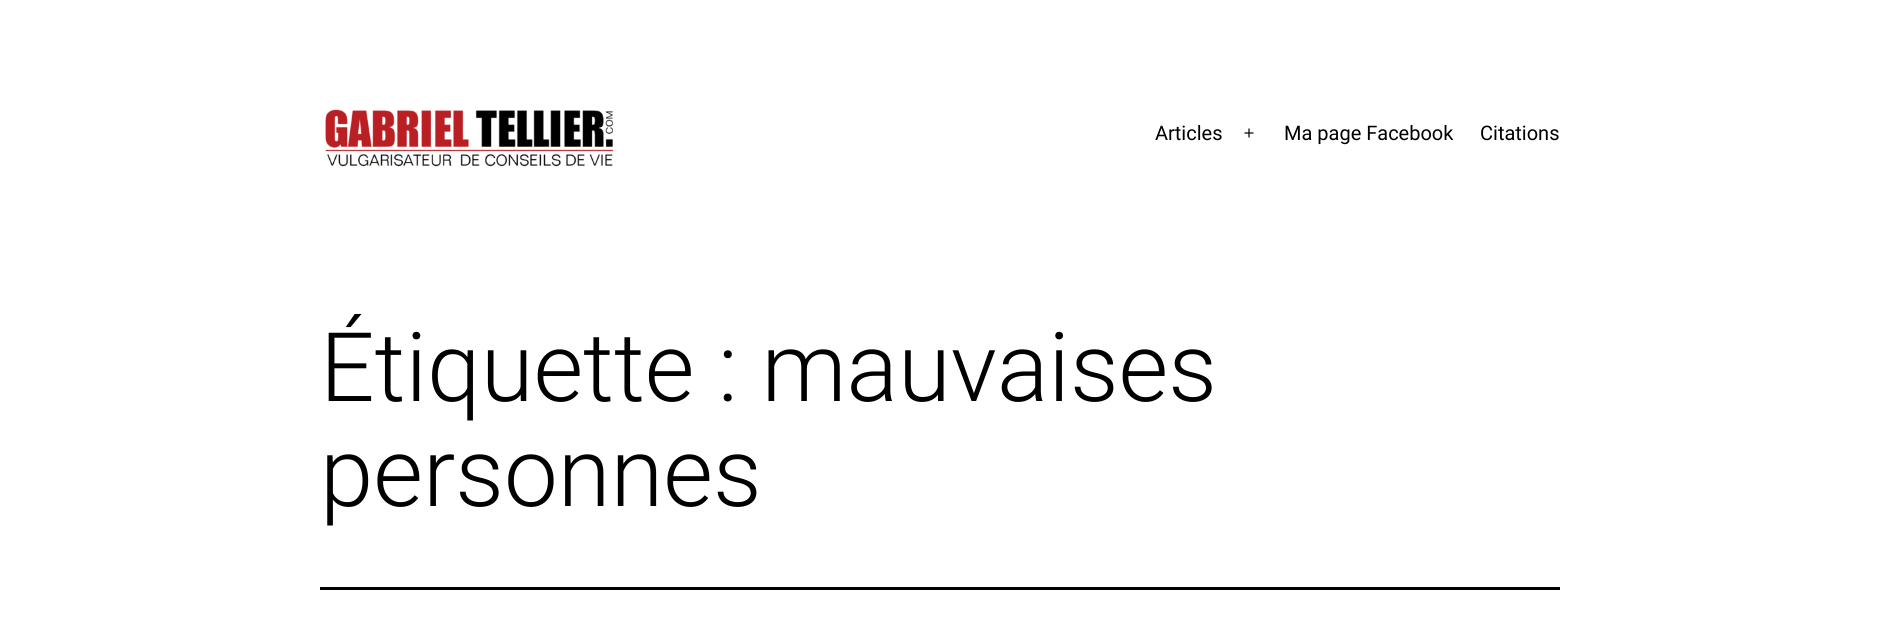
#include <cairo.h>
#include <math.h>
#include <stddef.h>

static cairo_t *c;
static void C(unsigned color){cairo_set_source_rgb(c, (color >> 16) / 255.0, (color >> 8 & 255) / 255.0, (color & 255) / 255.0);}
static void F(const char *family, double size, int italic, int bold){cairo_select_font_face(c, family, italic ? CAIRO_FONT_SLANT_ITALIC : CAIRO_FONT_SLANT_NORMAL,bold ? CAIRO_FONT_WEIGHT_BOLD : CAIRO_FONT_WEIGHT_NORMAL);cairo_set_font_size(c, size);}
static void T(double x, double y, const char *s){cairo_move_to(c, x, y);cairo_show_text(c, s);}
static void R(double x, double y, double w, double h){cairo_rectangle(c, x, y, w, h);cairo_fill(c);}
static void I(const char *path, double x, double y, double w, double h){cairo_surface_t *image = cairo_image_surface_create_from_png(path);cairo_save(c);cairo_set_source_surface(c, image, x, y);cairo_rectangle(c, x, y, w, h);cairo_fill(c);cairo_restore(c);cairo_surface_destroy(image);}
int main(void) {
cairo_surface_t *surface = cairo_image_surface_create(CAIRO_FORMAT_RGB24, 1879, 625);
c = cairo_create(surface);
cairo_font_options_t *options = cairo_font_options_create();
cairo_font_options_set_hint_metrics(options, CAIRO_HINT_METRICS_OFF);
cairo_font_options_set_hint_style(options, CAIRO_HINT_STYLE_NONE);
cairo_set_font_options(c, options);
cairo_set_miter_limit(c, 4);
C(0xffffff);
cairo_paint(c);
I("1.png",325,109,289,58);
F("Roboto",20,0,0);
C(0x000000);
T(1155,140,"Articles");
I("2.png",1244,128,10,10);
T(1284,140,"Ma page Facebook");
T(1480,140,"Citations");
R(320,587,1240,3);
F("Roboto Light",96,0,0);
T(320,401,"Étiquette : mauvaises");
T(320,506,"personnes");
cairo_surface_write_to_png(surface, "o.png");
cairo_font_options_destroy(options);
cairo_destroy(c);
cairo_surface_destroy(surface);
return 0;
}
